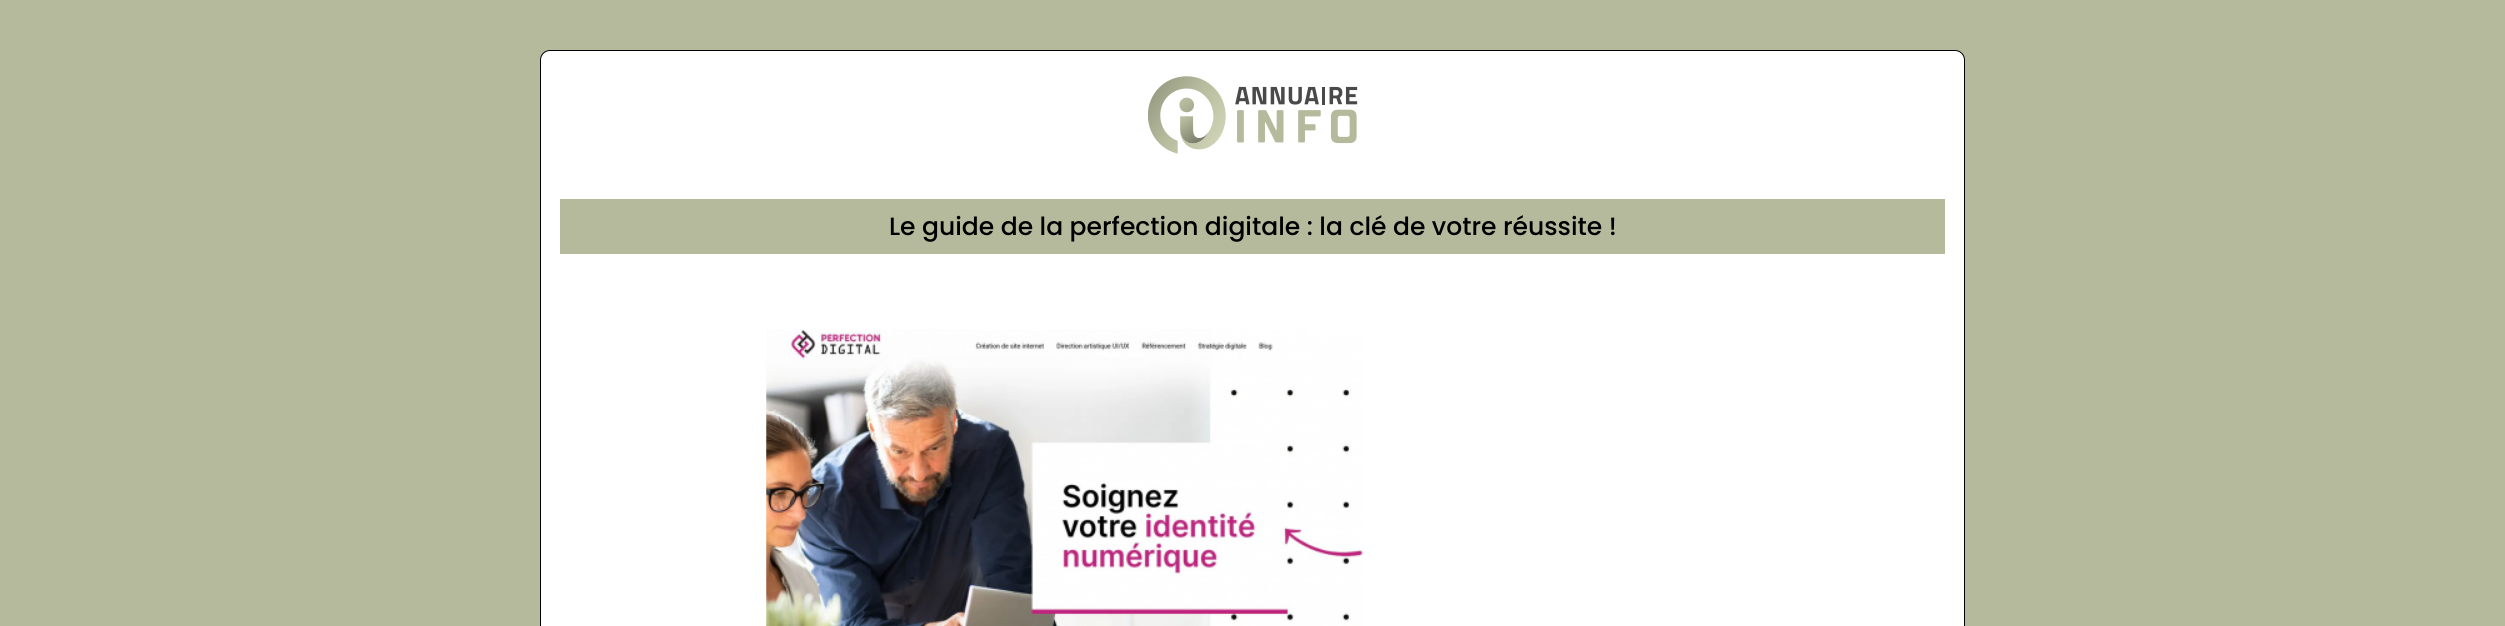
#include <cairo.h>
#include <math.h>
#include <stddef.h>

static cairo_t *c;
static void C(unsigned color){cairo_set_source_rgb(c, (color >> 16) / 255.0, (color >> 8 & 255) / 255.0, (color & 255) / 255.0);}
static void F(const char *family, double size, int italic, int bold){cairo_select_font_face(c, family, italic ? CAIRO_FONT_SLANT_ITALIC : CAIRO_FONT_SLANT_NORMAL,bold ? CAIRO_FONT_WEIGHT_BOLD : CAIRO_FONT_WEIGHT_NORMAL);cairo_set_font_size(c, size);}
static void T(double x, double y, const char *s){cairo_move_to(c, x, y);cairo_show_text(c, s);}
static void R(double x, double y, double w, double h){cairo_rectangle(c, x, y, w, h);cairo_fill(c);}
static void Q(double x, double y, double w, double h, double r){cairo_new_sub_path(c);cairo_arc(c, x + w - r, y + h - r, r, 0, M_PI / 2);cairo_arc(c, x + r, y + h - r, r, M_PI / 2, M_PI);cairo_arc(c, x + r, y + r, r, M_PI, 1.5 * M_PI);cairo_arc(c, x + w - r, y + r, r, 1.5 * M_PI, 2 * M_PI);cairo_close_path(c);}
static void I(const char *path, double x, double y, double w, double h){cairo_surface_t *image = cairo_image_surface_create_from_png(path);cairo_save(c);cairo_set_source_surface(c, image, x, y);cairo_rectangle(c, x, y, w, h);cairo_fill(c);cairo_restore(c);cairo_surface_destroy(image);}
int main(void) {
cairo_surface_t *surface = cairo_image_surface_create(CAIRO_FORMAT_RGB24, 2505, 626);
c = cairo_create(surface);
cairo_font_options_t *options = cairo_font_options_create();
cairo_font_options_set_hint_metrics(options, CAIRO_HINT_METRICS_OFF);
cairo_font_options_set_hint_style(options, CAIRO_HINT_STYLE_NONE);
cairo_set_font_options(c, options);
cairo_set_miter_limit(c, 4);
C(0xb5ba9c);
cairo_paint(c);
C(0xffffff);
Q(540.5,50.5,1424,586,9.5);
cairo_fill_preserve(c);
C(0x000000);
cairo_set_line_width(c,1);
cairo_stroke(c);
I("1.png",1148,76,210,78);
C(0xb5ba9c);
R(560,199,1385,55);
F("Poppins Medium",25,0,0);
C(0x000000);
T(889,235,"Le guide de la perfection digitale : la clé de votre réussite !");
I("2.png",766,329,597,297);
cairo_surface_write_to_png(surface, "o.png");
cairo_font_options_destroy(options);
cairo_destroy(c);
cairo_surface_destroy(surface);
return 0;
}
